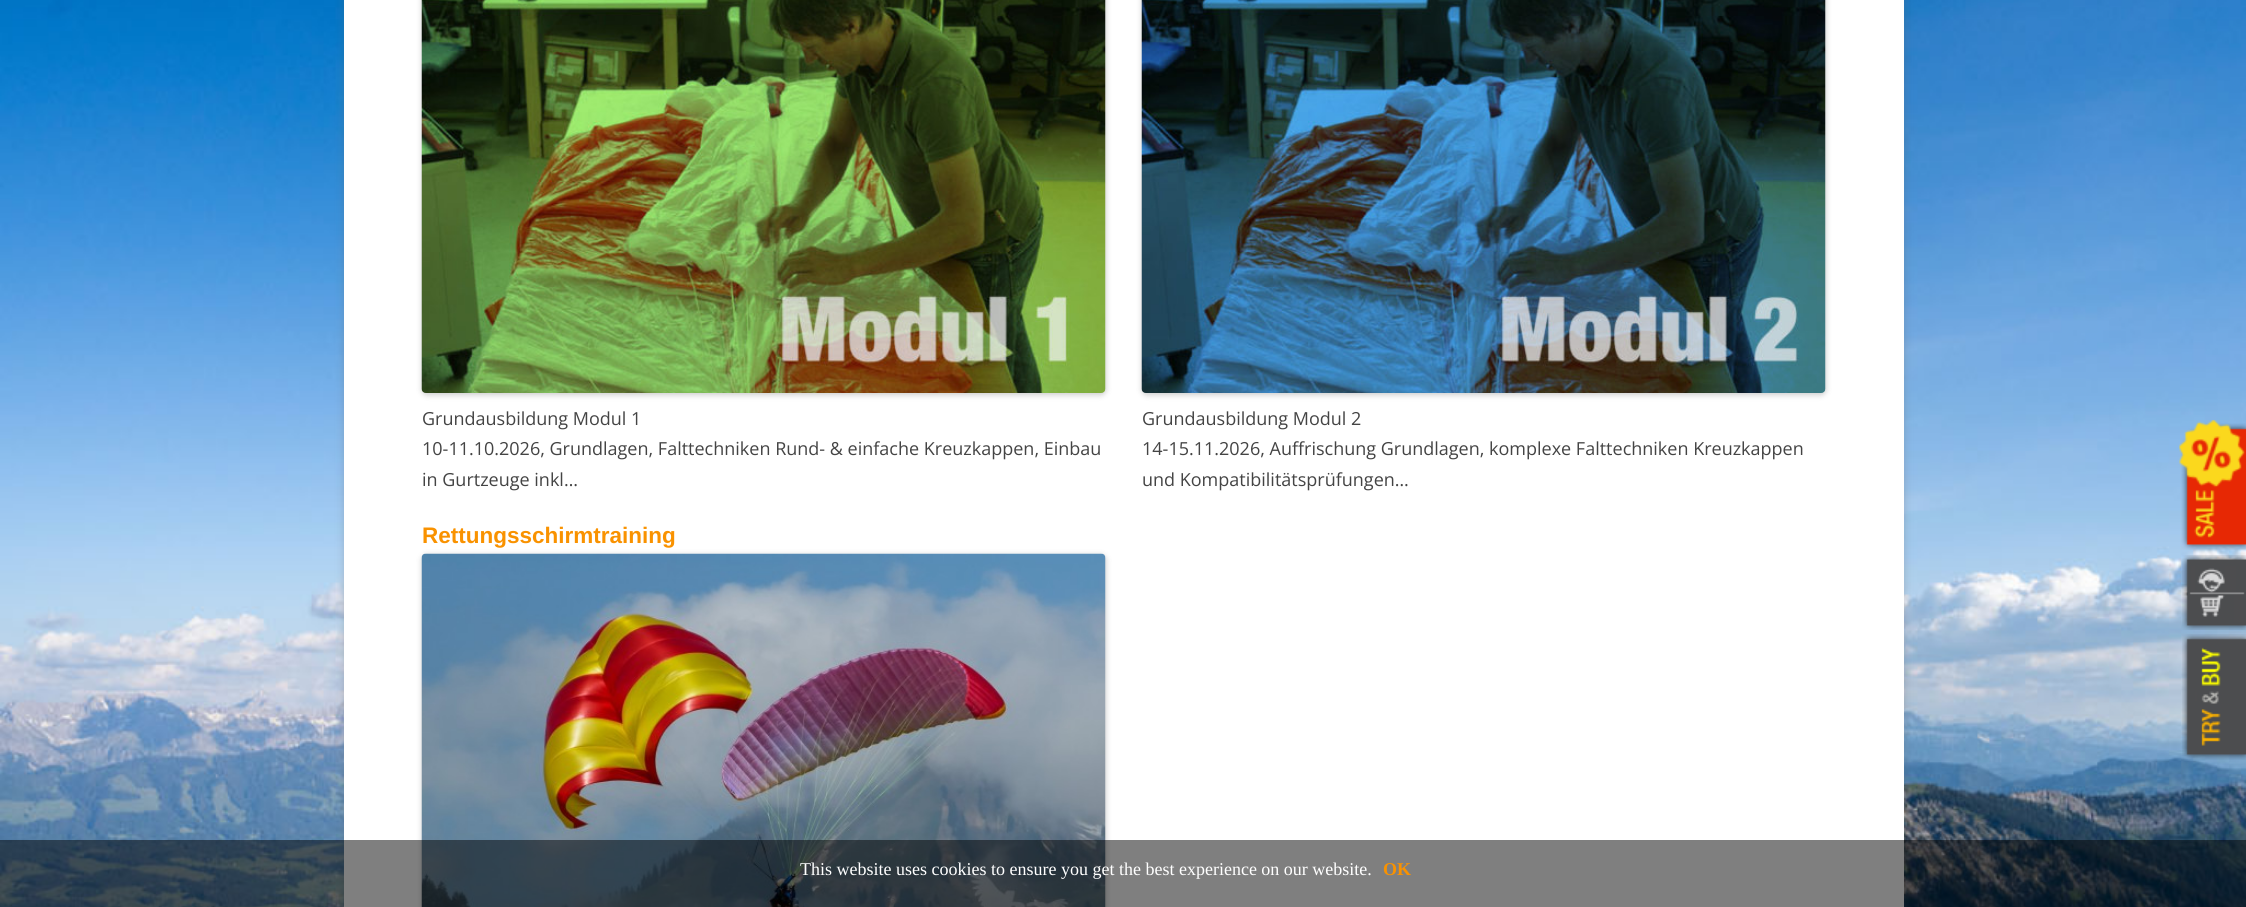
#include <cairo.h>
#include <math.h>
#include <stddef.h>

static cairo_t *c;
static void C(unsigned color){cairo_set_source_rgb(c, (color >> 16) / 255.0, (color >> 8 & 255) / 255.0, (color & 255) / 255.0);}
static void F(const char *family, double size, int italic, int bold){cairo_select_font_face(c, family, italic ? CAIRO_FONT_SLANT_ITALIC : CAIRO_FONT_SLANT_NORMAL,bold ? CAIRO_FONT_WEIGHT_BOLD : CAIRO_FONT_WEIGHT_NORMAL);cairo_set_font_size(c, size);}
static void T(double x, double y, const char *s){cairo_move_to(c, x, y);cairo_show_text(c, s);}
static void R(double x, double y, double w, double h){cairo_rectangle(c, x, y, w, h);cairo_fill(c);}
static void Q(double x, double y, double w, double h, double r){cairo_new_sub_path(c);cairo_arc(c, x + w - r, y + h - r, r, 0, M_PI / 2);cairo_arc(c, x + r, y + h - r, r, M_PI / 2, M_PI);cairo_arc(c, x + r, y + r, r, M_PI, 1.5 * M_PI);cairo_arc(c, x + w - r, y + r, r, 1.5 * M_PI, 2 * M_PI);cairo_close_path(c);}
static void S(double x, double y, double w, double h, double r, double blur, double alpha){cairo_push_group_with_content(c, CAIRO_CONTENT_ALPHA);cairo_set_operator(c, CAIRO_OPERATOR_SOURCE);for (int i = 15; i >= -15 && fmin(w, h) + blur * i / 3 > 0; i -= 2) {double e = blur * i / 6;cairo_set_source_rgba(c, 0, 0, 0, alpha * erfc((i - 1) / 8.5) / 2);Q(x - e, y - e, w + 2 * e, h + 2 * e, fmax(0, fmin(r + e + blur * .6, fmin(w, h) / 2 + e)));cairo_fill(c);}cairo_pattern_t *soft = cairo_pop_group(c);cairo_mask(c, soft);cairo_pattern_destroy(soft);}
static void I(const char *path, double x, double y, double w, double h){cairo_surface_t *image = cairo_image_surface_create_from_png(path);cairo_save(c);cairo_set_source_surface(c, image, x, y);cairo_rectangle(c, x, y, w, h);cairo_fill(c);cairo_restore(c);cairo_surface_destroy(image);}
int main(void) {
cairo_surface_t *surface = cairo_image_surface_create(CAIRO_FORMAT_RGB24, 2246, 907);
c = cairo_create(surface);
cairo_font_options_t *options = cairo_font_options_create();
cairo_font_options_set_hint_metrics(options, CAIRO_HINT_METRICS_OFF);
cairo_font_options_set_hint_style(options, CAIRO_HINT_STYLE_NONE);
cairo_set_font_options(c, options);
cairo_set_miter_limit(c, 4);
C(0xffffff);
cairo_paint(c);
I("1.png",0,0,2246,907);
C(0x646464);
S(344,-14,1560,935,0,4.5,.3);
C(0xffffff);
R(344,0,1560,907);
C(0x000000);
S(422,-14,684,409,5,3,.2);
I("2.png",421,0,685,393);
F("Open Sans",18,0,0);
C(0x444444);
T(422,425,"Grundausbildung Modul 1");
T(422,455,"10-11.10.2026, Grundlagen, Falttechniken Rund- & einfache Kreuzkappen, Einbau");
T(422,486,"in Gurtzeuge inkl…");
C(0x000000);
S(1142,-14,684,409,5,3,.2);
I("3.png",1141,0,685,393);
C(0x444444);
T(1142,425,"Grundausbildung Modul 2");
T(1142,455,"14-15.11.2026, Auffrischung Grundlagen, komplexe Falttechniken Kreuzkappen");
T(1142,486,"und Kompatibilitätsprüfungen…");
F("Liberation Sans",22.5,0,1);
C(0xf99200);
T(422,543,"Rettungsschirmtraining");
C(0x000000);
S(422,555,684,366,5,3,.2);
I("4.png",421,553,685,354);
I("5.png",2179,420,67,130);
I("6.png",2182,555,64,41);
I("7.png",2182,592,64,38);
I("8.png",2182,634,64,126);
cairo_set_source_rgba(c,0,0,0,0.5);
R(0,840,2246,67);
F("Liberation Serif",18,0,0);
C(0xffffff);
T(800,875,"This website uses cookies to ensure you get the best experience on our website.");
F("Liberation Serif",18,0,1);
C(0xf99200);
T(1383,875,"OK");
cairo_surface_write_to_png(surface, "o.png");
cairo_font_options_destroy(options);
cairo_destroy(c);
cairo_surface_destroy(surface);
return 0;
}
